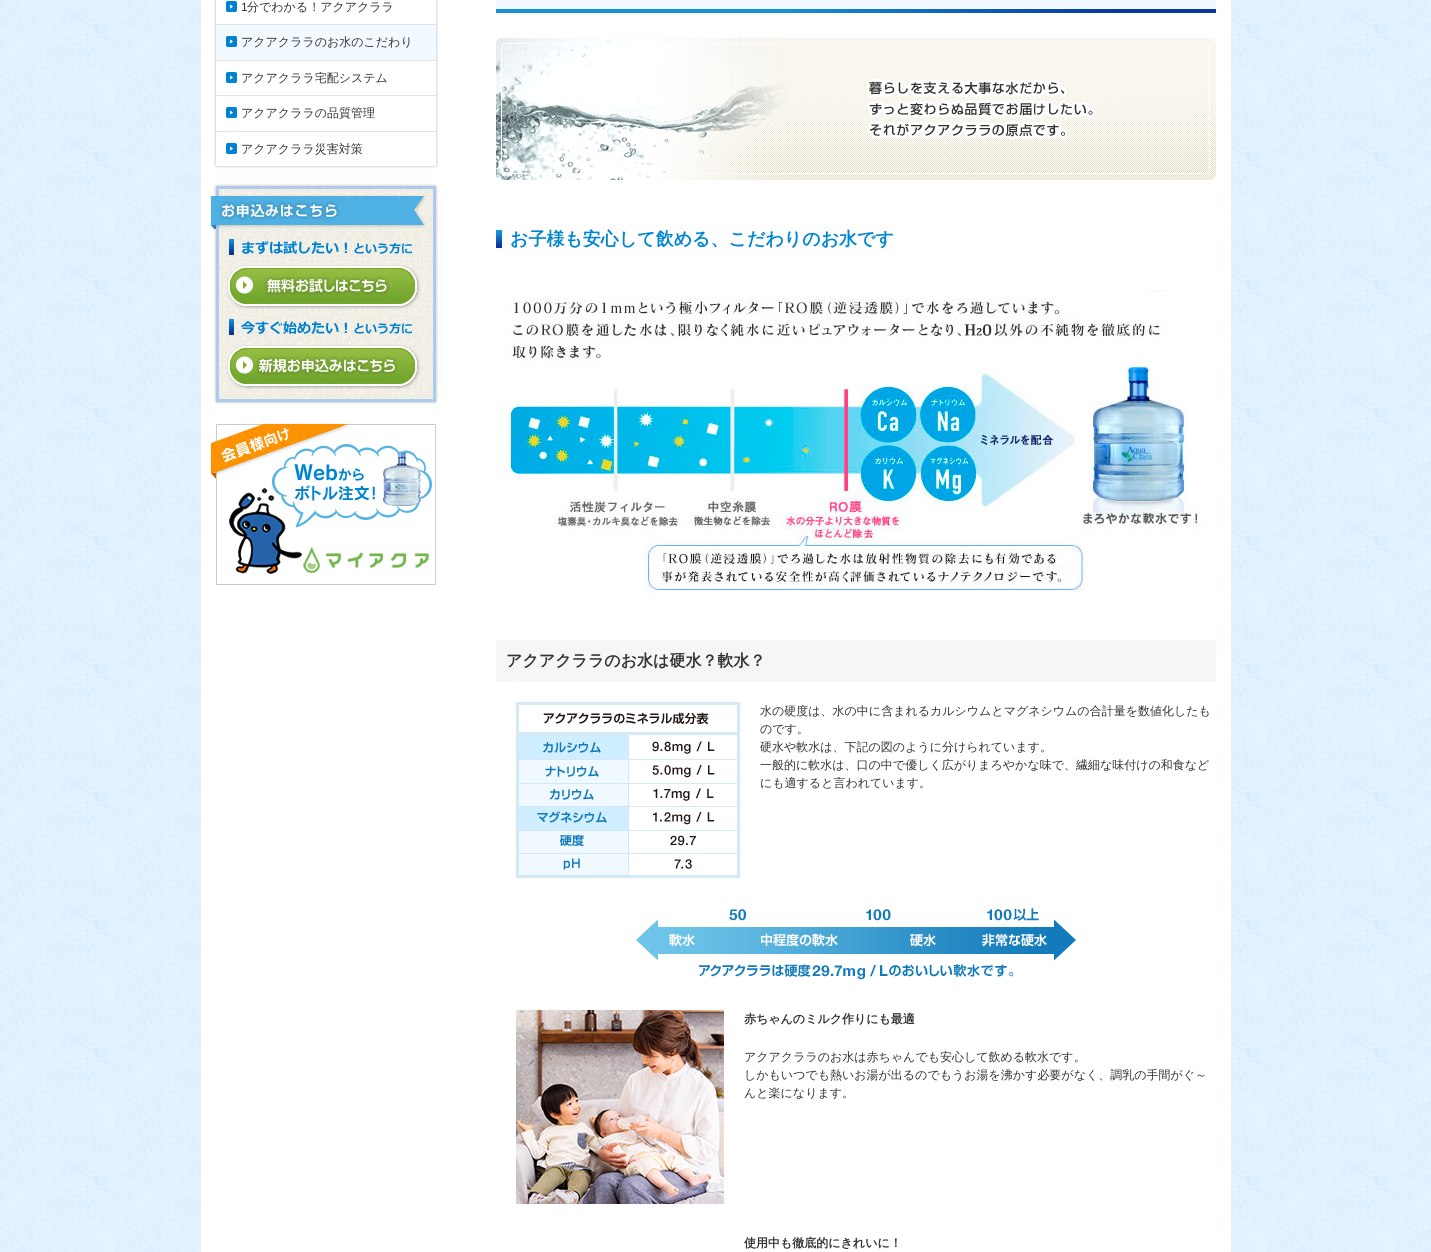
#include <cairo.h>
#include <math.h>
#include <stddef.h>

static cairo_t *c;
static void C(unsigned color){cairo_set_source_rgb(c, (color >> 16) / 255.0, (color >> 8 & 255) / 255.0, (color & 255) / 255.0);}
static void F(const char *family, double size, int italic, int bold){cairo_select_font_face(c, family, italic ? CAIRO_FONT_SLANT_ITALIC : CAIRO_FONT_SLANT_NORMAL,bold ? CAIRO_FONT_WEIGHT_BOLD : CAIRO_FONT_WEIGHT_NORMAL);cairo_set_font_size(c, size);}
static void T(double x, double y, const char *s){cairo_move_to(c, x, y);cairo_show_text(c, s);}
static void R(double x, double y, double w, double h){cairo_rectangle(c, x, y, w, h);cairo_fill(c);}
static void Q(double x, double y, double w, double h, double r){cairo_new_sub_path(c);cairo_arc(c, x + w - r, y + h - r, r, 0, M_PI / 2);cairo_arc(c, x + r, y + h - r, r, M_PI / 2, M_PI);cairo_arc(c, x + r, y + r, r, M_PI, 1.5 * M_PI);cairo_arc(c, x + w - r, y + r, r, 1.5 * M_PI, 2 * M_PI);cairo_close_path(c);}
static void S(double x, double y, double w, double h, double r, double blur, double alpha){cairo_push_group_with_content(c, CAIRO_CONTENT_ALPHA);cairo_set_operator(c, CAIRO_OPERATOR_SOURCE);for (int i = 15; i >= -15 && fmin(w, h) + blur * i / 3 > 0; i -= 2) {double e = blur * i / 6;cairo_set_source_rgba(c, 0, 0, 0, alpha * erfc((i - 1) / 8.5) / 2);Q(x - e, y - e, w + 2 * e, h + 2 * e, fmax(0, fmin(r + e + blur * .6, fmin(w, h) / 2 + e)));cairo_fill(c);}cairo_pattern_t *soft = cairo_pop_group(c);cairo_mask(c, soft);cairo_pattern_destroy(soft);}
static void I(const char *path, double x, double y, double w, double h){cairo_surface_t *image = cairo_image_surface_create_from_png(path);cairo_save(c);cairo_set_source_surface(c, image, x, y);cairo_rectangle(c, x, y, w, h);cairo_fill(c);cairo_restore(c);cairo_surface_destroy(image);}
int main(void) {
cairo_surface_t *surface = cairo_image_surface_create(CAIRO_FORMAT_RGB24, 1431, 1252);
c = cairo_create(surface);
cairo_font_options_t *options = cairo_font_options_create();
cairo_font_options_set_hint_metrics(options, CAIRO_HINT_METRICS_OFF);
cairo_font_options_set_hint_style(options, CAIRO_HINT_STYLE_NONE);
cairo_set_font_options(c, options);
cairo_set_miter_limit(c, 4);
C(0xffffff);
cairo_paint(c);
I("1.png",0,0,1431,1252);
C(0xffffff);
R(201,0,1030,1252);
C(0x000000);
S(216,-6,220,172,1,1.5,.3);
C(0xffffff);
Q(216,-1,220,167,1);
cairo_fill(c);
I("2.png",226,1,11,11);
F("Liberation Sans",12,0,0);
C(0x333333);
T(241,11,"1");
F("WenQuanYi Zen Hei Medium",12,0,0);
T(247,11,"分でわかる！アクアクララ");
C(0xf2faff);
R(216,25,220,35);
I("3.png",226,36,11,11);
C(0xe2e2e2);
R(216,24,220,1);
C(0x333333);
T(241,46,"アクアクララのお水のこだわり");
I("2.png",226,72,11,11);
C(0xe2e2e2);
R(216,60,220,1);
C(0x333333);
T(241,82,"アクアクララ宅配システム");
I("2.png",226,107,11,11);
C(0xe2e2e2);
R(216,95,220,1);
C(0x333333);
T(241,117,"アクアクララの品質管理");
I("2.png",226,143,11,11);
C(0xe2e2e2);
R(216,131,220,1);
C(0x333333);
T(241,153,"アクアクララ災害対策");
C(0x000000);
S(216,186,220,216,1,1.5,.3);
I("4.png",219,189,214,210);
cairo_new_path(c);
cairo_move_to(c,217.5,187.5);
cairo_line_to(c,434.5,187.5);
cairo_line_to(c,434.5,400.5);
cairo_line_to(c,217.5,400.5);
cairo_close_path(c);
C(0xadcceb);
cairo_set_line_width(c,3);
cairo_stroke(c);
I("5.png",210,195,216,34);
I("6.png",229,239,183,16);
I("7.png",227,265,193,44);
I("8.png",229,319,183,16);
I("9.png",227,345,193,44);
I("10.png",210,423,226,162);
C(0xf2faff);
R(496,0,720,9);
I("11.png",496,9,720,4);
I("12.png",496,38,720,142);
I("13.png",496,230,6,18);
F("WenQuanYi Zen Hei",18,0,1);
C(0x0085d0);
T(510,245,"お子様も安心して飲める、こだわりのお水です");
I("14.png",505,290,696,304);
C(0xf6f6f6);
R(496,640,720,42);
F("WenQuanYi Zen Hei",16,0,1);
C(0x333333);
T(506,666,"アクアクララのお水は硬水？軟水？");
I("15.png",516,702,224,176);
F("WenQuanYi Zen Hei Medium",12,0,0);
T(760,715,"水の硬度は、水の中に含まれるカルシウムとマグネシウムの合計量を数値化したも");
T(760,733,"のです。");
T(760,751,"硬水や軟水は、下記の図のように分けられています。");
T(760,769,"一般的に軟水は、口の中で優しく広がりまろやかな味で、繊細な味付けの和食など");
T(760,787,"にも適すると言われています。");
I("16.png",636,908,440,72);
I("17.png",516,1010,208,194);
F("WenQuanYi Zen Hei",12,0,1);
T(744,1023,"赤ちゃんのミルク作りにも最適");
F("WenQuanYi Zen Hei Medium",12,0,0);
T(744,1061,"アクアクララのお水は赤ちゃんでも安心して飲める軟水です。");
T(744,1079,"しかもいつでも熱いお湯が出るのでもうお湯を沸かす必要がなく、調乳の手間がぐ～");
T(744,1097,"んと楽になります。");
F("WenQuanYi Zen Hei",12,0,1);
T(744,1247,"使用中も徹底的にきれいに！");
cairo_surface_write_to_png(surface, "o.png");
cairo_font_options_destroy(options);
cairo_destroy(c);
cairo_surface_destroy(surface);
return 0;
}
